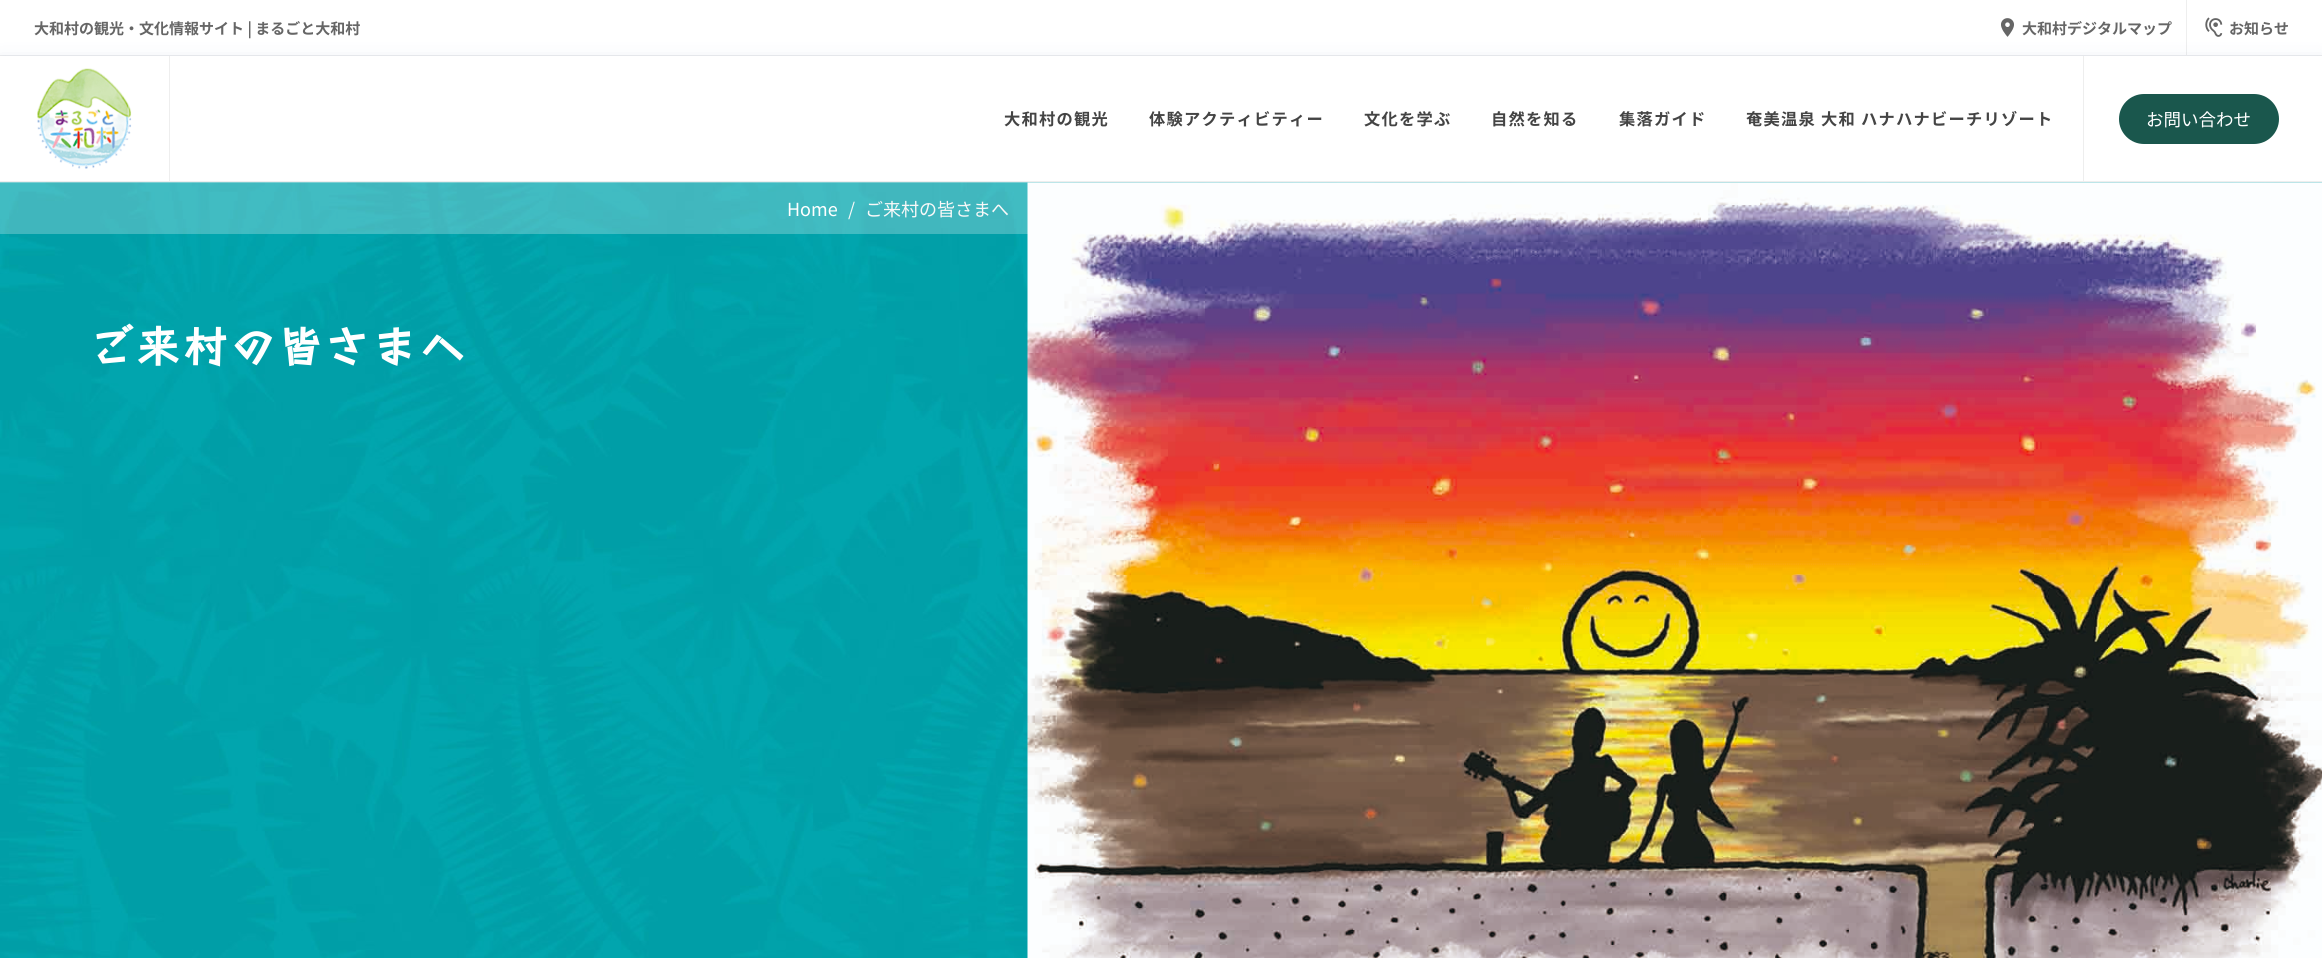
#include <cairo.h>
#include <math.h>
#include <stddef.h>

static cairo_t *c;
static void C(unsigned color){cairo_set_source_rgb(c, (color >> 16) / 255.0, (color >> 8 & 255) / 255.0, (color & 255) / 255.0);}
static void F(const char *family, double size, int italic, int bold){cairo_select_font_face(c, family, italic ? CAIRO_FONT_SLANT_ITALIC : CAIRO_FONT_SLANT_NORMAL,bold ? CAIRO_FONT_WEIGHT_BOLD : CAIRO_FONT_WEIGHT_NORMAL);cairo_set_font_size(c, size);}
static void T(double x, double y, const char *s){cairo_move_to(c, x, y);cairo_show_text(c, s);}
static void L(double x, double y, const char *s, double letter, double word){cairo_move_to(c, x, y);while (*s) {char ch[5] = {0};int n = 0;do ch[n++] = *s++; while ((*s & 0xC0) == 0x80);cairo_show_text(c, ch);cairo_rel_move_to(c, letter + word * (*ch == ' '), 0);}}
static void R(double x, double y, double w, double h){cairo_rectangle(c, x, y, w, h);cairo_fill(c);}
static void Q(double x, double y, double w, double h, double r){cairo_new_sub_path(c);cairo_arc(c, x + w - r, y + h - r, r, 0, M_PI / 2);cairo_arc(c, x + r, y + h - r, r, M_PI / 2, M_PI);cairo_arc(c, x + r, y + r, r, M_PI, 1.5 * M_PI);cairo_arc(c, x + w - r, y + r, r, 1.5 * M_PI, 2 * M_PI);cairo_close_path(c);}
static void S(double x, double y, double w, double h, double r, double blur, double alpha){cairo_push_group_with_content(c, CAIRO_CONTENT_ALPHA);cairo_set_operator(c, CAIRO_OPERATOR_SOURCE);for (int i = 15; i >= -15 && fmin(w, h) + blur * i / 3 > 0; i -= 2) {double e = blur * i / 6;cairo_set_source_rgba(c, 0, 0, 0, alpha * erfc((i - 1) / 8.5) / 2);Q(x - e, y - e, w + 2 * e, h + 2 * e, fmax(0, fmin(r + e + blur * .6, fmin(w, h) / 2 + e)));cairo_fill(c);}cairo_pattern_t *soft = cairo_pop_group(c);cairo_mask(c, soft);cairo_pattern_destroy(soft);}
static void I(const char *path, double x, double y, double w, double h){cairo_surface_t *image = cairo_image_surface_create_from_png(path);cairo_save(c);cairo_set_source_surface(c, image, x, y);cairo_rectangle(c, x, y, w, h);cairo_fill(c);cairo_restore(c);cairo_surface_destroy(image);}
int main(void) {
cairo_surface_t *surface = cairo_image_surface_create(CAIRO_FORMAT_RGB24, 2322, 958);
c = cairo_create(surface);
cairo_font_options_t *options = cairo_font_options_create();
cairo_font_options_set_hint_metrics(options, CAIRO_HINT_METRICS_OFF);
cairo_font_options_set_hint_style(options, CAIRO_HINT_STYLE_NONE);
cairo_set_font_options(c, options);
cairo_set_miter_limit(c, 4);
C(0xffffff);
cairo_paint(c);
C(0xeeeeee);
R(0,55,2322,1);
F("Noto Sans JP",15,0,1);
C(0x666666);
T(34,34,"大和村の観光・文化情報サイト | まるごと大和村");
I("1.png",2001,18,13,19);
T(2022,34,"大和村デジタルマップ");
C(0xeeeeee);
R(2186,0,1,55);
I("2.png",2205,17,18,20);
C(0x666666);
T(2229,34,"お知らせ");
C(0x003194);
S(0,63,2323,126,0,9.5,.17);
C(0xf7f7f7);
R(0,182,2322,1);
C(0xeeeeee);
R(0,181,2322,1);
C(0xffffff);
R(0,56,2322,125);
C(0xeeeeee);
R(169,56,1,125);
I("3.png",37,68,95,101);
R(2083,56,1,125);
F("Noto Sans JP",16.25,0,1);
C(0x444444);
L(1004,125,"大和村の観光",1.25,0);
L(1149,125,"体験アクティビティー",1.25,0);
L(1364,125,"文化を学ぶ",1.25,0);
L(1491,125,"自然を知る",1.25,0);
L(1619,125,"集落ガイド",1.25,0);
L(1746,125,"奄美温泉 大和 ハナハナビーチリゾート",1.25,0);
C(0x1a574d);
Q(2119,94,160,50,25);
cairo_fill(c);
F("Noto Sans JP",17.5,0,0);
C(0xffffff);
T(2146,126,"お問い合わせ");
I("4.png",0,182,2322,776);
I("5.png",1027,182,1295,776);
cairo_set_source_rgba(c,1,1,1,0.25);
R(0,183,1028,51);
F("Noto Sans JP",18,0,0);
C(0xffffff);
T(787,216,"Home");
C(0xf8f8f8);
T(848,216,"/");
T(865,216,"ご来村の皆さまへ");
F("Stick",45,0,1);
C(0xffffff);
L(88,363,"ご来村の皆さまへ",2.25,0);
cairo_surface_write_to_png(surface, "o.png");
cairo_font_options_destroy(options);
cairo_destroy(c);
cairo_surface_destroy(surface);
return 0;
}
